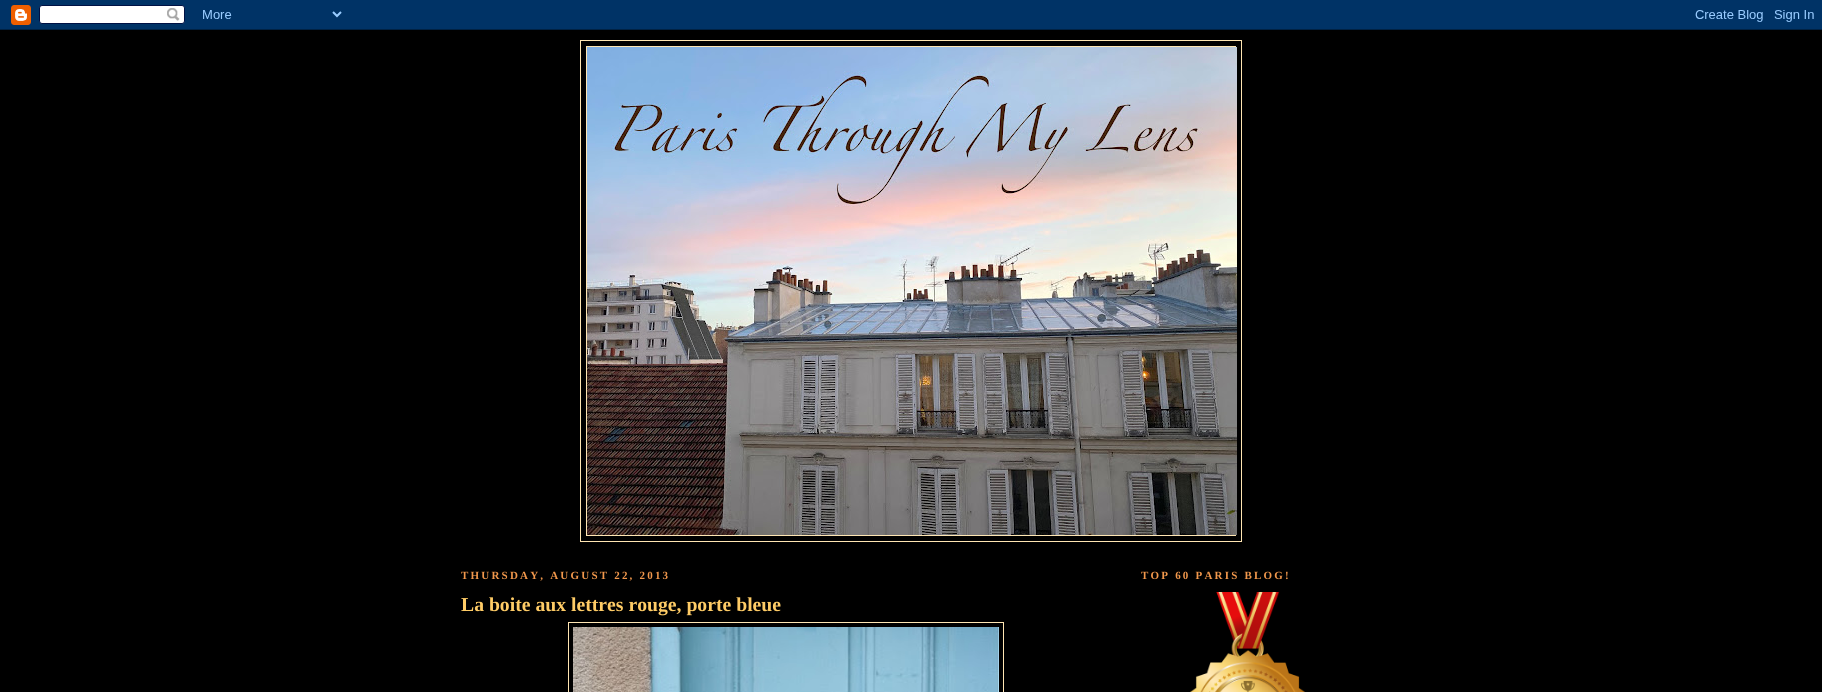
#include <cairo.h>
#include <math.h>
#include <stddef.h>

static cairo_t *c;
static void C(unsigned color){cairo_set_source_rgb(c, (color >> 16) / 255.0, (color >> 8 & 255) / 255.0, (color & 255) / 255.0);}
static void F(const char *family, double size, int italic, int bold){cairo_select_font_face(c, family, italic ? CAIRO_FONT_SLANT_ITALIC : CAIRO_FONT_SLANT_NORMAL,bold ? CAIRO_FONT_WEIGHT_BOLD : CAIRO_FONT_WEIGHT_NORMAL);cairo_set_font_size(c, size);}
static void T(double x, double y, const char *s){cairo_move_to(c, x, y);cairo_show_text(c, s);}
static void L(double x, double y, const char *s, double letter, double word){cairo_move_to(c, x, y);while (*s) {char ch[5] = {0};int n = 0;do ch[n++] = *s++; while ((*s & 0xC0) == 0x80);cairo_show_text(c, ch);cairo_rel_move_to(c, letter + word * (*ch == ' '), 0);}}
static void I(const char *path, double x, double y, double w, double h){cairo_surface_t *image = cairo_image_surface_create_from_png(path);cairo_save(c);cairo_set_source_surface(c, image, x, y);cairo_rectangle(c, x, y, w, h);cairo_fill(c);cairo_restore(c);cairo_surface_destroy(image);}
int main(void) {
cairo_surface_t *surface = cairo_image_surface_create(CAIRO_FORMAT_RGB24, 1822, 692);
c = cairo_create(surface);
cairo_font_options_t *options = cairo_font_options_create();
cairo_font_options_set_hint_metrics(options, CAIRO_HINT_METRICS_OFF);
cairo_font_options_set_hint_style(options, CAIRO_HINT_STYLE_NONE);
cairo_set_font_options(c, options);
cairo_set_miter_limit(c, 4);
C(0x000000);
cairo_paint(c);
I("1.png",0,0,1822,30);
cairo_rectangle(c,580.5,40.5,661,501);
C(0xffe6b3);
cairo_set_line_width(c,1);
cairo_stroke(c);
cairo_rectangle(c,586.5,46.5,649,489);
cairo_stroke(c);
I("2.png",587,47,650,488);
F("Liberation Serif",11,0,1);
C(0xf2984c);
L(461,579,"THURSDAY, AUGUST 22, 2013",2.2,0);
F("Liberation Serif",19.7,0,1);
C(0xffcc66);
T(461,611,"La boite aux lettres rouge, porte bleue");
cairo_rectangle(c,568.5,622.5,435,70);
C(0xffe6b3);
cairo_stroke(c);
I("3.png",573,627,426,65);
F("Liberation Serif",11,0,1);
C(0xf2984c);
L(1141,579,"TOP 60 PARIS BLOG!",2.2,0);
I("4.png",1190,592,115,100);
cairo_surface_write_to_png(surface, "o.png");
cairo_font_options_destroy(options);
cairo_destroy(c);
cairo_surface_destroy(surface);
return 0;
}
